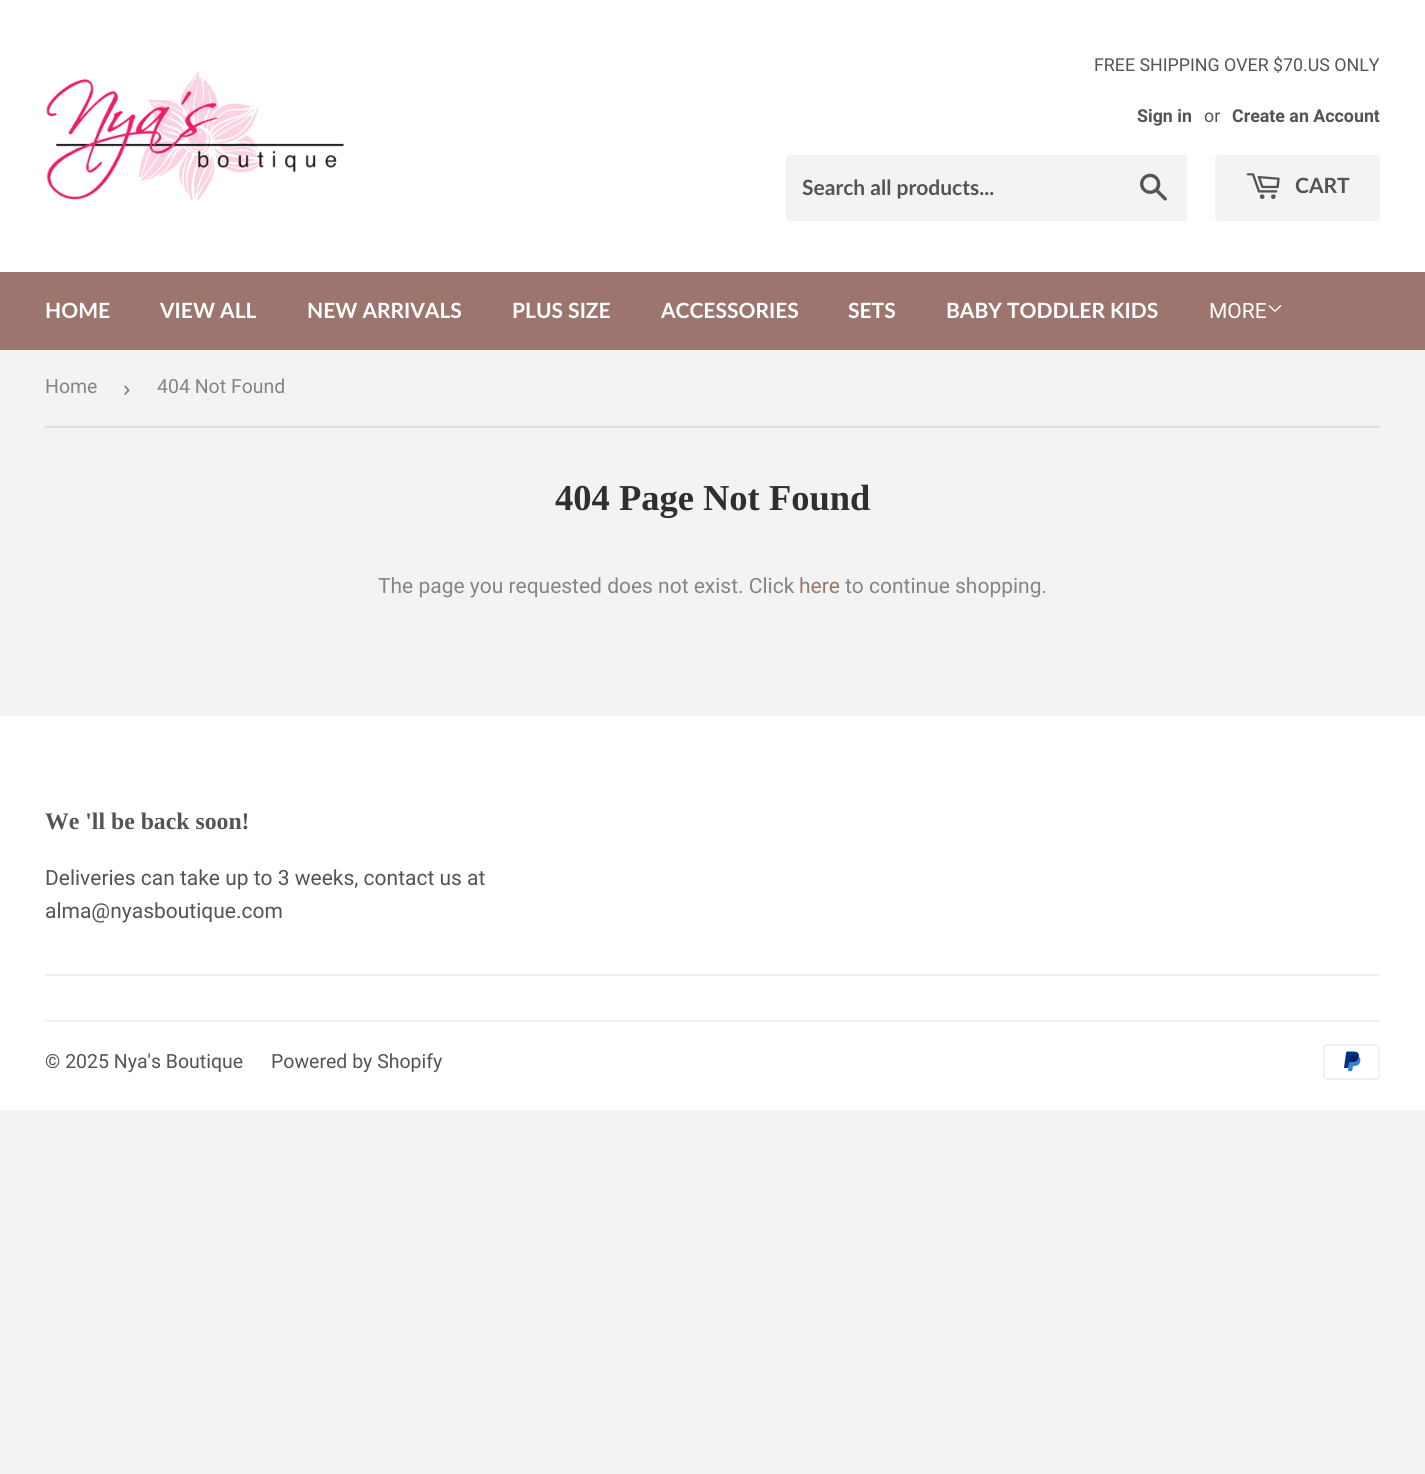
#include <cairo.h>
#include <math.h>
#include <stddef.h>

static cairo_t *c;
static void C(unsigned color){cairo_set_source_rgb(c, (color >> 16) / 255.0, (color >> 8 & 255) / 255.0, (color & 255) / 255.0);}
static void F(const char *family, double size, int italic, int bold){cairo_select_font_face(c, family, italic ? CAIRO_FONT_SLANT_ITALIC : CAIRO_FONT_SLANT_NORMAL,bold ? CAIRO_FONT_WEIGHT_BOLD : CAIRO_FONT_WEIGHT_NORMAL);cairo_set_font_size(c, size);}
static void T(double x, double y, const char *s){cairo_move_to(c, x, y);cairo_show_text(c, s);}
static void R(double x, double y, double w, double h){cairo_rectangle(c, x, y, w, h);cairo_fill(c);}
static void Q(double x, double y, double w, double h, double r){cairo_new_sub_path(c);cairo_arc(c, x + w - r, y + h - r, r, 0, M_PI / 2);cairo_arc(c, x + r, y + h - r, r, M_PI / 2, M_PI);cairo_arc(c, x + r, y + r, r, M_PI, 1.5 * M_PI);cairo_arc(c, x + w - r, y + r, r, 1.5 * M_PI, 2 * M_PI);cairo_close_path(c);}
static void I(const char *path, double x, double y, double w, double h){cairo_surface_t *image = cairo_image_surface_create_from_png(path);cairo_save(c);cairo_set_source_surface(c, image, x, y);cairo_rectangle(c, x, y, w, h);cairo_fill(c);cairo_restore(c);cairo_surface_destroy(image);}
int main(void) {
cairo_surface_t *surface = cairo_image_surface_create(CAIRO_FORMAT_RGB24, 1425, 1474);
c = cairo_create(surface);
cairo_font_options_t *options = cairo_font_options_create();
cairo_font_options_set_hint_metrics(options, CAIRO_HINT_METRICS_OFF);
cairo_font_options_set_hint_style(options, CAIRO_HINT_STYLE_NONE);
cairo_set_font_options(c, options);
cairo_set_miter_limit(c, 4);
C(0xf3f3f3);
cairo_paint(c);
C(0xffffff);
R(0,0,1425,272);
I("1.png",46,71,299,130);
F("Roboto",17.8,0,0);
C(0x545454);
T(1094,71,"FREE SHIPPING OVER $70.US ONLY");
F("Roboto",17.8,0,1);
T(1137,122,"Sign in");
F("Roboto",17.8,0,0);
T(1204,122,"or");
F("Roboto",17.8,0,1);
T(1232,122,"Create an Account");
C(0xf3f3f3);
Q(786,155,401,66,3);
cairo_fill(c);
F("Lato",21,0,1);
C(0x545454);
T(802,195,"Search all products...");
I("2.png",1140,173,27,28);
C(0xf3f3f3);
Q(1215,155,165,66,3);
cairo_fill(c);
I("3.png",1246,173,34,26);
C(0x545454);
T(1295,193,"CART");
C(0x9c756f);
R(0,272,1425,78);
C(0xffffff);
T(45,318,"HOME");
T(160,318,"VIEW ALL");
T(307,318,"NEW ARRIVALS");
T(512,318,"PLUS SIZE");
T(661,318,"ACCESSORIES");
T(848,318,"SETS");
T(946,318,"BABY TODDLER KIDS");
F("Roboto",21,0,0);
T(1209,318,"MORE");
I("4.png",1268,305,14,7);
C(0xdedede);
R(45,426,1335,2);
F("Roboto",19.5,0,0);
C(0x858585);
T(45,393,"Home");
F("Liberation Sans",22,0,0);
C(0x767676);
T(123,396,"›");
F("Roboto",19.5,0,0);
C(0x858585);
T(157,393,"404 Not Found");
F("Liberation Serif",36.5,0,1);
C(0x2f2f2f);
T(555,510,"404 Page Not Found");
F("Roboto",21,0,0);
C(0x858585);
T(378,593,"The page you requested does not exist. Click");
C(0x9c756f);
T(799,593,"here");
C(0x858585);
T(845,593,"to continue shopping.");
C(0xffffff);
R(0,716,1425,394);
F("Liberation Serif",23.75,0,1);
C(0x545454);
T(45,829,"We 'll be back soon!");
F("Roboto",21,0,0);
T(45,885,"Deliveries can take up to 3 weeks, contact us at");
T(45,918,"alma@nyasboutique.com");
C(0xf2f2f2);
R(45,974,1335,2);
R(45,1020,1335,2);
F("Roboto",19.5,0,0);
C(0x545454);
T(45,1068,"© 2025 Nya's Boutique");
T(271,1068,"Powered by Shopify");
I("5.png",1323,1044,57,36);
cairo_surface_write_to_png(surface, "o.png");
cairo_font_options_destroy(options);
cairo_destroy(c);
cairo_surface_destroy(surface);
return 0;
}
